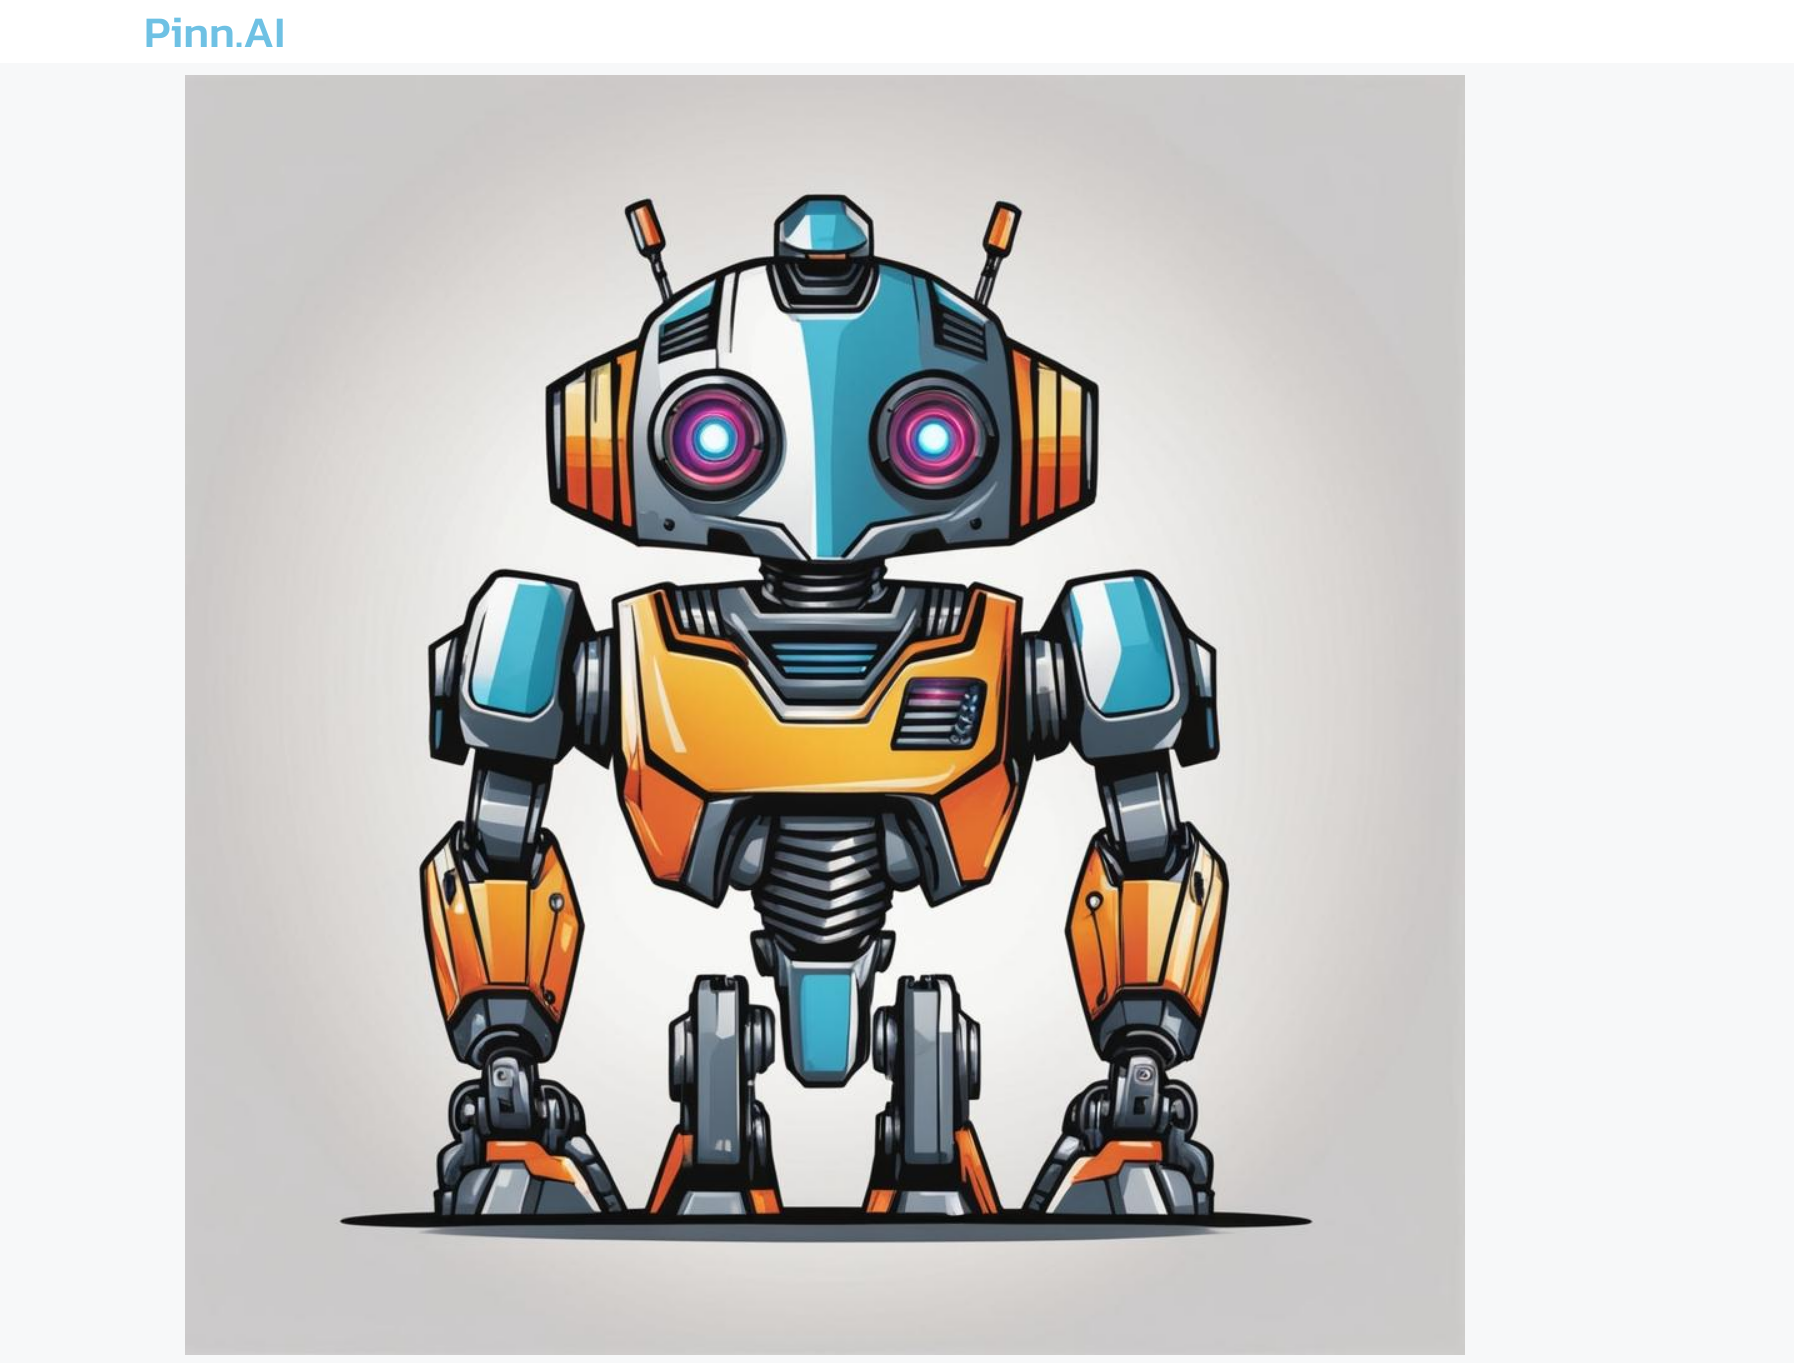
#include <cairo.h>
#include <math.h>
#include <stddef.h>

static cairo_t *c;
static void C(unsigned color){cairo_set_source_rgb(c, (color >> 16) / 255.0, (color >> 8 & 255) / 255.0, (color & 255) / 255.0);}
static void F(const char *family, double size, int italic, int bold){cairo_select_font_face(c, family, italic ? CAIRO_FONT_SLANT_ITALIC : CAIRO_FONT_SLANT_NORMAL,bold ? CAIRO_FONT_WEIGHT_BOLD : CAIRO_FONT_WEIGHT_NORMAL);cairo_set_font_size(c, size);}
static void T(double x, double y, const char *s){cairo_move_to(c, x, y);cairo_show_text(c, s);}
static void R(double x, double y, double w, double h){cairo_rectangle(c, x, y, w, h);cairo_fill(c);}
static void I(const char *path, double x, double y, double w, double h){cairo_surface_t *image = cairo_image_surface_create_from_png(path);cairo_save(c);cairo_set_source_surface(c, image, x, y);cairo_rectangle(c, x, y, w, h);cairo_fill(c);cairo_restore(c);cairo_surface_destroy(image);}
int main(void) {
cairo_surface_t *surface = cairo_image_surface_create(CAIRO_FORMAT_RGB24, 1794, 1363);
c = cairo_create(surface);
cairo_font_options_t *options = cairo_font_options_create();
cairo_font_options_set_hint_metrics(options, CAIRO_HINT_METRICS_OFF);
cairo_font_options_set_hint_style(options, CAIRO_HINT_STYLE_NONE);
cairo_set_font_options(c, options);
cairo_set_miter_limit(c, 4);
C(0xf7f8f9);
cairo_paint(c);
C(0xffffff);
R(0,0,1794,63);
F("Kanit Medium",44,0,0);
C(0x6ec1e4);
T(144,47,"Pinn.AI");
I("1.png",185,75,1280,1280);
cairo_surface_write_to_png(surface, "o.png");
cairo_font_options_destroy(options);
cairo_destroy(c);
cairo_surface_destroy(surface);
return 0;
}
